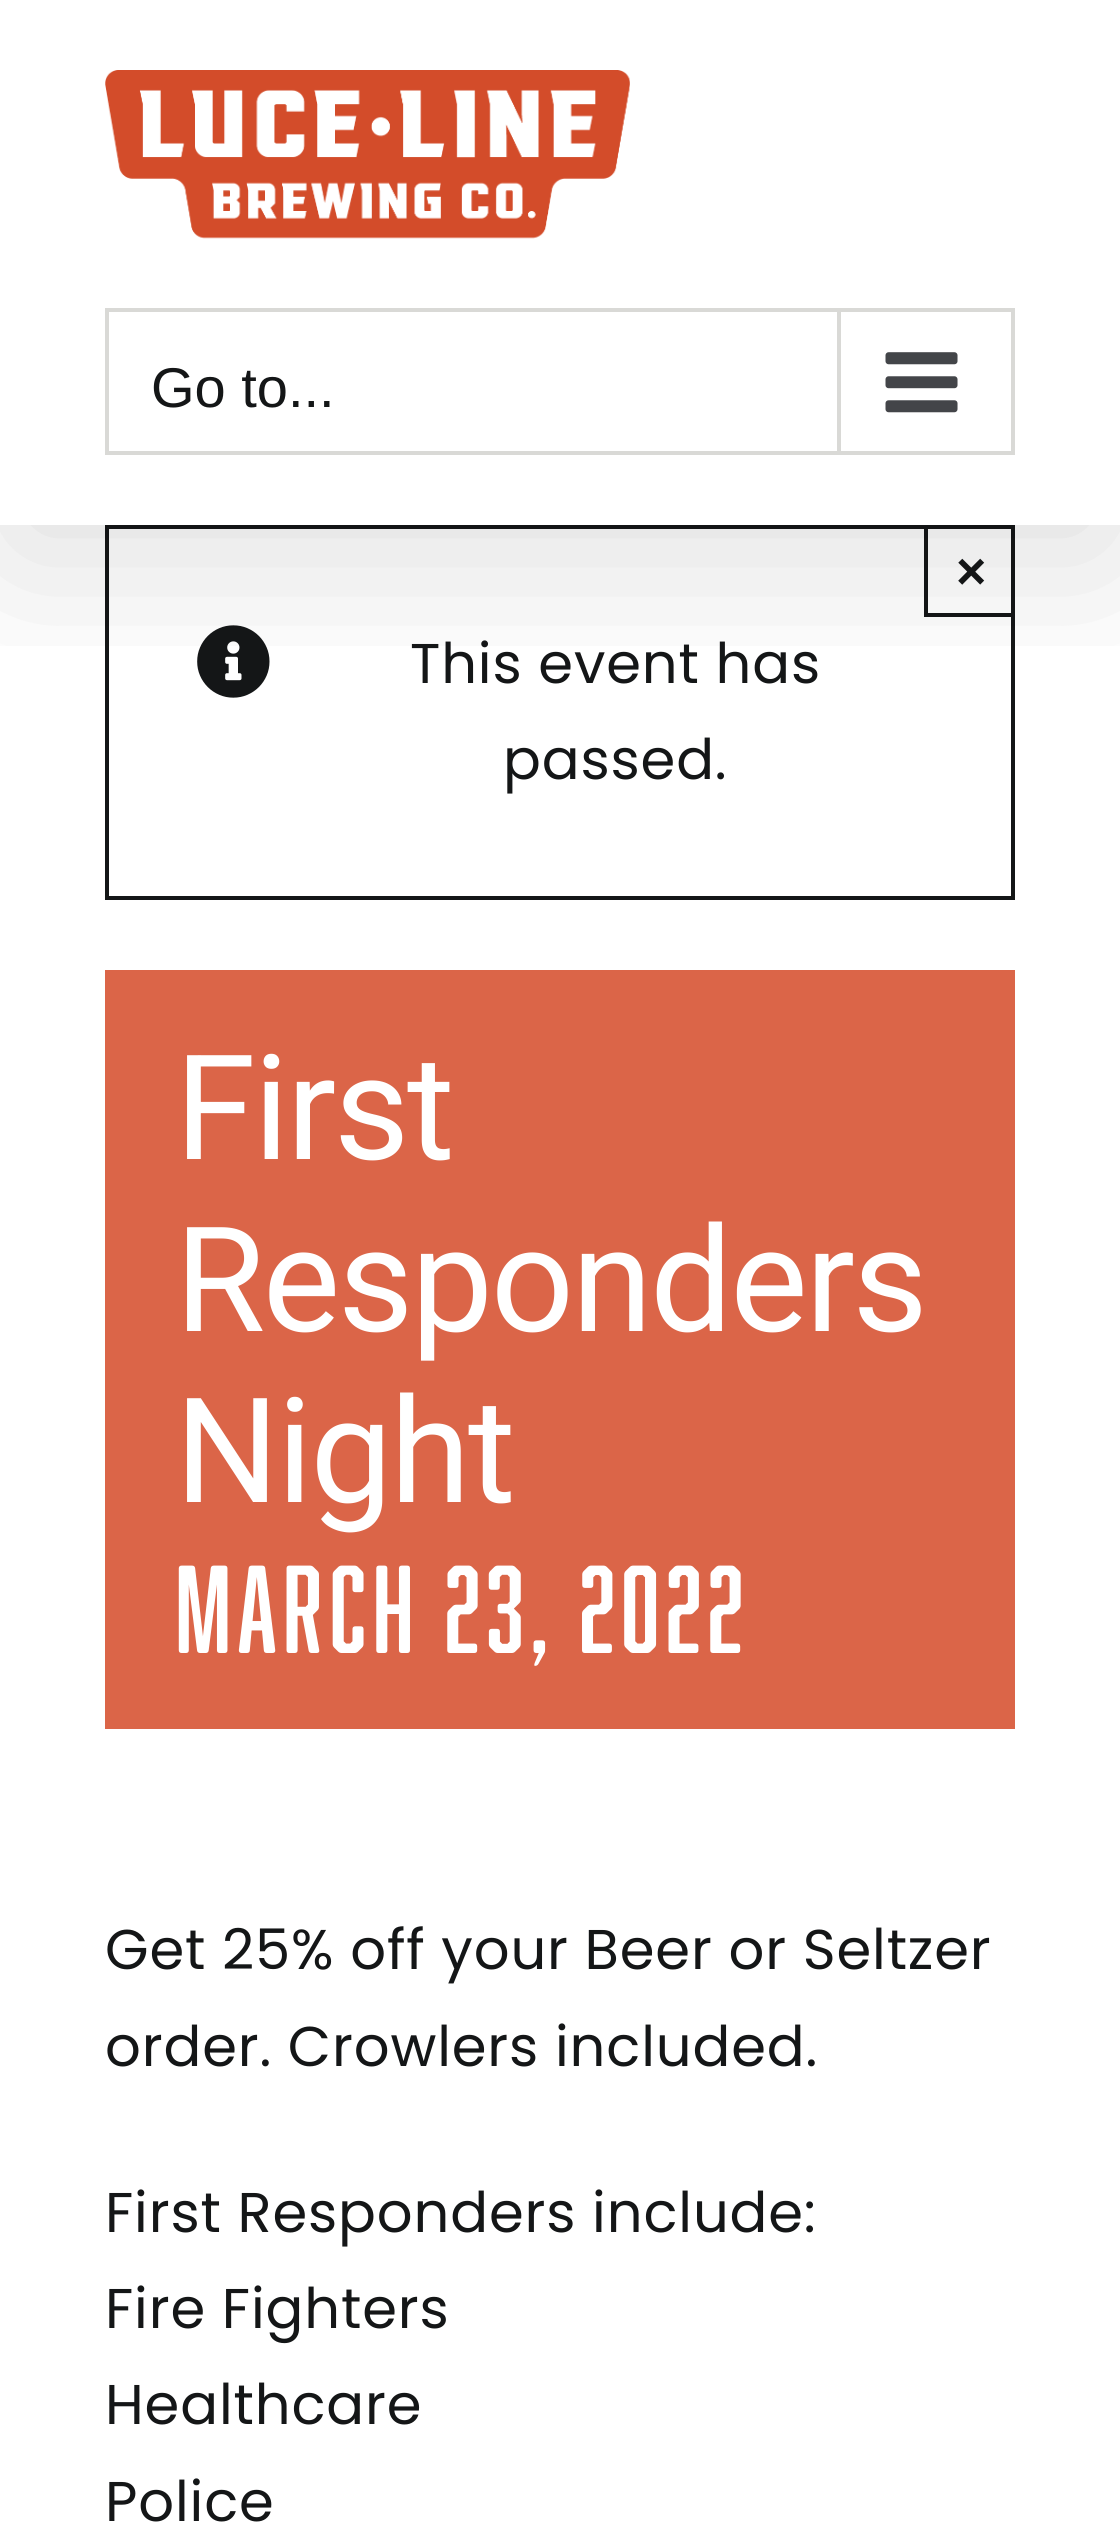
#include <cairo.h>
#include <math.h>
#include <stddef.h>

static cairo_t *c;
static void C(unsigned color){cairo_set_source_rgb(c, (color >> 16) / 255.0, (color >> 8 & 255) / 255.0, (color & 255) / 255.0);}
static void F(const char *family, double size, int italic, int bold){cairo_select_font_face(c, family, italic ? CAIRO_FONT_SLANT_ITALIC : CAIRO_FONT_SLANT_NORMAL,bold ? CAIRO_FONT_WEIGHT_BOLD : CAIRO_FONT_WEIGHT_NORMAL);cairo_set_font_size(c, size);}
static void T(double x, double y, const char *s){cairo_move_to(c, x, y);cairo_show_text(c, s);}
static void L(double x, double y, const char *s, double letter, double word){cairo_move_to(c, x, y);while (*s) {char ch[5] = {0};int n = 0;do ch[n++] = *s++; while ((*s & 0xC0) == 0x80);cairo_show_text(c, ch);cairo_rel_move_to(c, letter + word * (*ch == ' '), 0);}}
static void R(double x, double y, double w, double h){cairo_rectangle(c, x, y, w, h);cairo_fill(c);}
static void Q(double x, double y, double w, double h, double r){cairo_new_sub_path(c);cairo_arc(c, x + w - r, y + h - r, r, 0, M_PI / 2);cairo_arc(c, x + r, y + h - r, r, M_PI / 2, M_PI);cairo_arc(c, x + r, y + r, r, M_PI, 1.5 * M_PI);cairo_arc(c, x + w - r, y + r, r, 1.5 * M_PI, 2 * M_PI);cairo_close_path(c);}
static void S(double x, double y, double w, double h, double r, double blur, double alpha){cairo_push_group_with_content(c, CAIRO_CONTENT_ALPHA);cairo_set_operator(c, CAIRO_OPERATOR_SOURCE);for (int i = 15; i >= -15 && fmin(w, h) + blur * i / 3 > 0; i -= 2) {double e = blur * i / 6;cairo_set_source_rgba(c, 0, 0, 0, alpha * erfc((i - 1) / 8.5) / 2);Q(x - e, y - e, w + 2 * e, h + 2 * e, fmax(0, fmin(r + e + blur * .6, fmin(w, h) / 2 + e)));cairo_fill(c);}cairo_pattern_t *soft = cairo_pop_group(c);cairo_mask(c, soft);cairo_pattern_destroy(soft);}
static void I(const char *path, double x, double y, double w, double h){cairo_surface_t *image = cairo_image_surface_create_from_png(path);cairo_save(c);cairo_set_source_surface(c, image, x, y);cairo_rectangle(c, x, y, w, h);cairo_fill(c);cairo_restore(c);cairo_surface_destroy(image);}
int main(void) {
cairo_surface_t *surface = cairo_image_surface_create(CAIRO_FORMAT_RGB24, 1120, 2530);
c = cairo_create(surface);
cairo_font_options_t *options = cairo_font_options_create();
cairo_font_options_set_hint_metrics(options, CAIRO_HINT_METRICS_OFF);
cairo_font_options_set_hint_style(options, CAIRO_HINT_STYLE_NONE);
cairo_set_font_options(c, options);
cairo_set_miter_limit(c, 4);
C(0xffffff);
cairo_paint(c);
cairo_rectangle(c,107,527,906,371);
C(0x141617);
cairo_set_line_width(c,4);
cairo_stroke(c);
R(924,613,91,4);
R(924,525,4,91);
I("3.png",197,625,73,73);
cairo_save(c);
cairo_rectangle(c,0,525,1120,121);
cairo_clip(c);
C(0x000000);
S(7,42,1106,511,0,87.5,.14);
cairo_restore(c);
I("1.png",105,70,525,169);
cairo_rectangle(c,107,310,906,143);
C(0xd9d9d6);
cairo_stroke(c);
F("Liberation Sans",56,0,0);
C(0x141617);
T(151,407,"Go to...");
C(0xd9d9d6);
R(837,312,4,140);
I("2.png",885,352,73,61);
F("Liberation Sans",52,0,1);
C(0x141617);
T(956,589,"×");
F("Poppins",56,0,0);
L(410,683,"This event has",.85,0);
L(503,779,"passed.",.85,0);
C(0xdb6548);
R(105,970,910,759);
F("Roboto",146,0,0);
C(0xffffff);
L(175,1159,"First",-2.25,0);
L(175,1331,"Responders",-2.25,0);
L(175,1502,"Night",-2.25,0);
F("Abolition",115,0,0);
L(175,1653,"March 23, 2022",6.25,0);
F("Poppins",56,0,0);
C(0x141617);
L(105,1969,"Get 25% off your Beer or Seltzer",.85,0);
L(105,2066,"order. Crowlers included.",.85,0);
L(105,2232,"First Responders include:",.85,0);
L(105,2328,"Fire Fighters",.85,0);
L(105,2424,"Healthcare",.85,0);
L(105,2521,"Police",.85,0);
cairo_surface_write_to_png(surface, "o.png");
cairo_font_options_destroy(options);
cairo_destroy(c);
cairo_surface_destroy(surface);
return 0;
}
